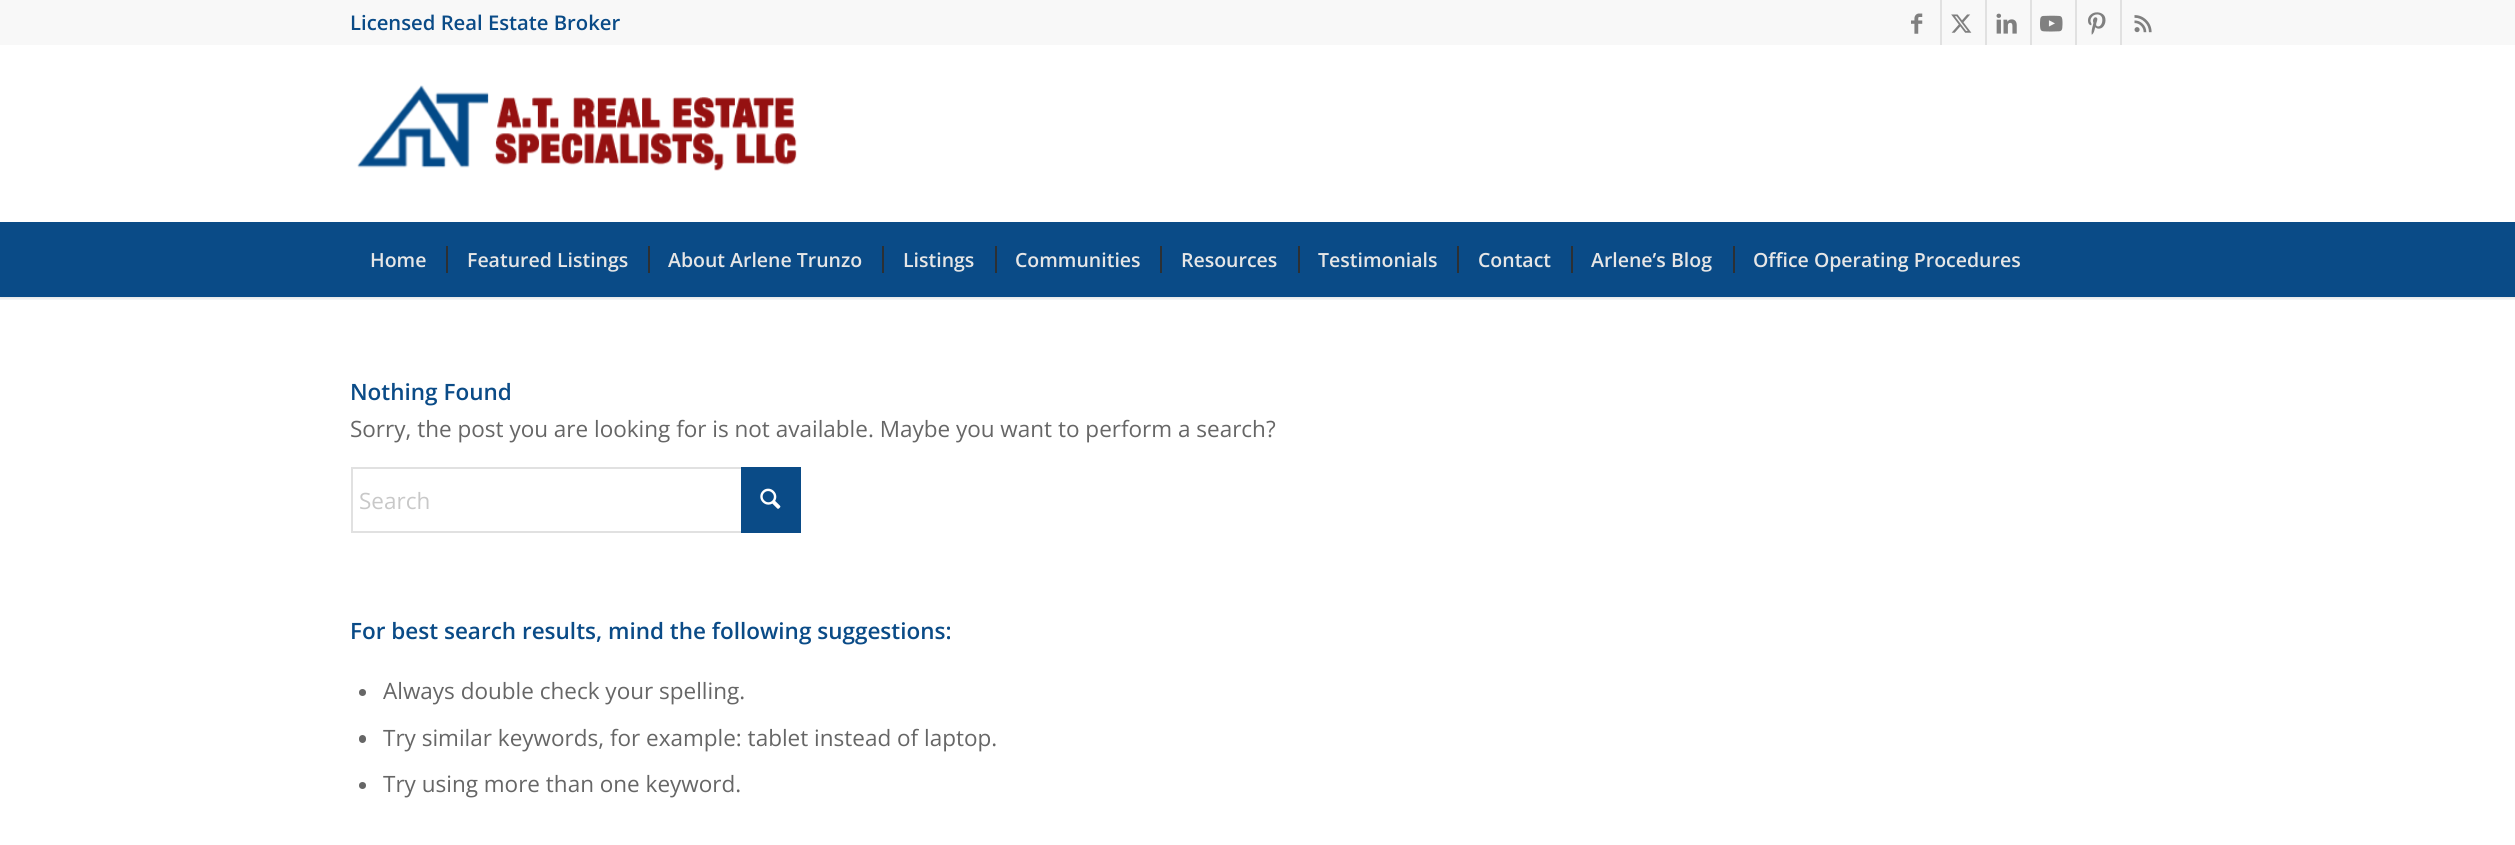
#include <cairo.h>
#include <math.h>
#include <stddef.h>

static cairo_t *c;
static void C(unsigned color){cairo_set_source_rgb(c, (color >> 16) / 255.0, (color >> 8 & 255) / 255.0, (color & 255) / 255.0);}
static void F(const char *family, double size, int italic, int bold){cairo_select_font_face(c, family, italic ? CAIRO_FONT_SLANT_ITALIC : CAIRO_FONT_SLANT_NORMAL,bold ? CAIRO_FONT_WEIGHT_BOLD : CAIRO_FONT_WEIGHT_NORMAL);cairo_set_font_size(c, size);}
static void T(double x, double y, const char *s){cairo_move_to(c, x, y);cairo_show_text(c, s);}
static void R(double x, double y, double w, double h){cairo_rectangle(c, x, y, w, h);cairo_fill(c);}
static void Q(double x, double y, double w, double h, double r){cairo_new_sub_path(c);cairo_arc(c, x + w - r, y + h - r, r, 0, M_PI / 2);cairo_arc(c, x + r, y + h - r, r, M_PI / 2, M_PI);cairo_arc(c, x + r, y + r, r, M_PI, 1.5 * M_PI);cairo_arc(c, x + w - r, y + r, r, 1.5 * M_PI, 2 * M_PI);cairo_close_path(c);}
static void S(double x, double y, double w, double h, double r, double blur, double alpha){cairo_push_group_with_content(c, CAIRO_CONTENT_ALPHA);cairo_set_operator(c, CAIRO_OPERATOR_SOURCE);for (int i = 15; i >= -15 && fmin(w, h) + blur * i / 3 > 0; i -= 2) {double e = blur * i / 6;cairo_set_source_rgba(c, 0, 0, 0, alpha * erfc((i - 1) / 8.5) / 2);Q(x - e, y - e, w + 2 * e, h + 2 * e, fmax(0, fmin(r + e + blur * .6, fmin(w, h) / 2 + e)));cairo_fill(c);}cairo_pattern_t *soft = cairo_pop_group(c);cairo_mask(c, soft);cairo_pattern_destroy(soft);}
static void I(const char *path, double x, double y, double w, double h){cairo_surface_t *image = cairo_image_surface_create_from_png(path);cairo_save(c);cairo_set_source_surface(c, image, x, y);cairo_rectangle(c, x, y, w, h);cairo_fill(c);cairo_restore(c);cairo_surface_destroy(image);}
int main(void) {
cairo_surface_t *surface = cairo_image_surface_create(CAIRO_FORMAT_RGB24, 2515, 845);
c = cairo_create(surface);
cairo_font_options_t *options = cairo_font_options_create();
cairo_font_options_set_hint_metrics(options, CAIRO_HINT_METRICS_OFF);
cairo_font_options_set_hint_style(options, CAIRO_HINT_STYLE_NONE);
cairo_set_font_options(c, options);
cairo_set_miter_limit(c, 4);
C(0xffffff);
cairo_paint(c);
cairo_save(c);
cairo_rectangle(c,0,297,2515,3);
cairo_clip(c);
C(0x000000);
S(-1,-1,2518,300,0,1.5,.1);
cairo_restore(c);
C(0xf8f8f8);
R(0,0,2515,45);
F("Open Sans SemiBold",20.25,0,0);
C(0x0a4b87);
T(350,30,"Licensed Real Estate Broker");
C(0xe1e1e1);
R(1940,0,2,45);
I("1.png",1911,13,12,21);
R(1985,0,2,45);
I("2.png",1951,14,21,19);
R(2030,0,2,45);
I("3.png",1996,13,21,21);
R(2075,0,2,45);
I("4.png",2040,15,23,17);
R(2120,0,2,45);
I("5.png",2088,12,18,23);
I("6.png",2134,15,18,18);
I("7.png",357,85,440,86);
C(0x0a4b87);
R(0,222,2515,75);
F("Open Sans SemiBold",19.5,0,0);
C(0xe6e6e6);
T(370,267,"Home");
T(467,267,"Featured Listings");
C(0x2c3033);
R(446,246,2,27);
C(0xe6e6e6);
T(668,267,"About Arlene Trunzo");
C(0x2c3033);
R(648,246,2,27);
C(0xe6e6e6);
T(903,267,"Listings");
C(0x2c3033);
R(882,246,2,27);
C(0xe6e6e6);
T(1015,267,"Communities");
C(0x2c3033);
R(995,246,2,27);
C(0xe6e6e6);
T(1181,267,"Resources");
C(0x2c3033);
R(1160,246,2,27);
C(0xe6e6e6);
T(1318,267,"Testimonials");
C(0x2c3033);
R(1298,246,2,27);
C(0xe6e6e6);
T(1478,267,"Contact");
C(0x2c3033);
R(1457,246,2,27);
C(0xe6e6e6);
T(1591,267,"Arlene’s Blog");
C(0x2c3033);
R(1571,246,2,27);
C(0xe6e6e6);
T(1753,267,"Office Operating Procedures");
C(0x2c3033);
R(1733,246,2,27);
F("Open Sans SemiBold",22.5,0,0);
C(0x0a4b87);
T(350,400,"Nothing Found");
F("Open Sans",22.5,0,0);
C(0x666666);
T(350,437,"Sorry, the post you are looking for is not available. Maybe you want to perform a search?");
cairo_rectangle(c,352,468,448,64);
C(0xe1e1e1);
cairo_stroke(c);
C(0x0a4b87);
R(741,467,60,66);
C(0xc8c8c8);
T(359,509,"Search");
I("8.png",760,488,21,21);
F("Open Sans SemiBold",22.5,0,0);
C(0x0a4b87);
T(350,639,"For best search results, mind the following suggestions:");
C(0x666666);
cairo_new_path(c);
cairo_arc(c,362.5,692.5,3.5,0,2 * M_PI);
cairo_fill(c);
F("Open Sans",22.5,0,0);
T(383,699,"Always double check your spelling.");
Q(359,735,7,8,3.5);
cairo_fill(c);
T(383,746,"Try similar keywords, for example: tablet instead of laptop.");
cairo_new_path(c);
cairo_arc(c,362.5,785.5,3.5,0,2 * M_PI);
cairo_fill(c);
T(383,792,"Try using more than one keyword.");
cairo_surface_write_to_png(surface, "o.png");
cairo_font_options_destroy(options);
cairo_destroy(c);
cairo_surface_destroy(surface);
return 0;
}
